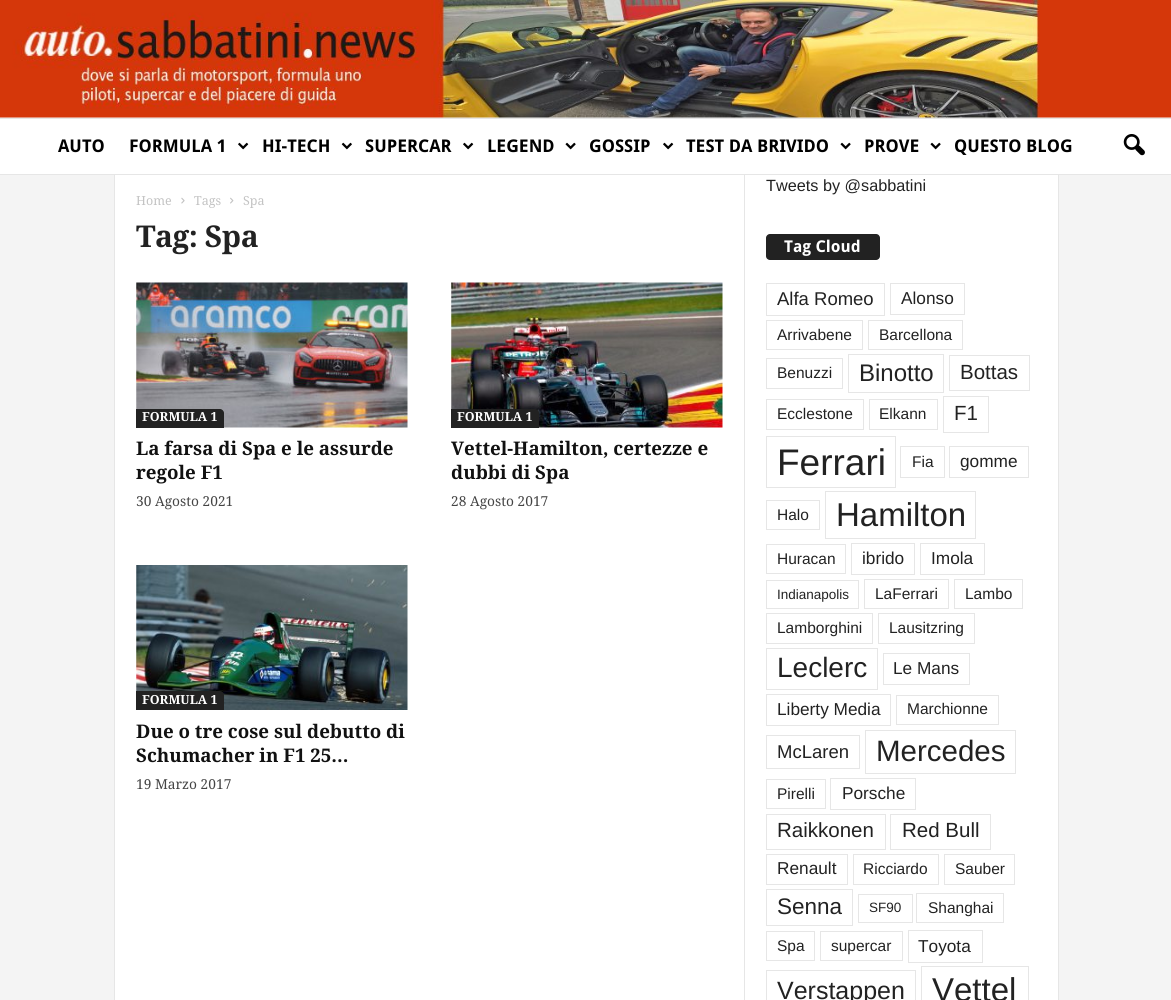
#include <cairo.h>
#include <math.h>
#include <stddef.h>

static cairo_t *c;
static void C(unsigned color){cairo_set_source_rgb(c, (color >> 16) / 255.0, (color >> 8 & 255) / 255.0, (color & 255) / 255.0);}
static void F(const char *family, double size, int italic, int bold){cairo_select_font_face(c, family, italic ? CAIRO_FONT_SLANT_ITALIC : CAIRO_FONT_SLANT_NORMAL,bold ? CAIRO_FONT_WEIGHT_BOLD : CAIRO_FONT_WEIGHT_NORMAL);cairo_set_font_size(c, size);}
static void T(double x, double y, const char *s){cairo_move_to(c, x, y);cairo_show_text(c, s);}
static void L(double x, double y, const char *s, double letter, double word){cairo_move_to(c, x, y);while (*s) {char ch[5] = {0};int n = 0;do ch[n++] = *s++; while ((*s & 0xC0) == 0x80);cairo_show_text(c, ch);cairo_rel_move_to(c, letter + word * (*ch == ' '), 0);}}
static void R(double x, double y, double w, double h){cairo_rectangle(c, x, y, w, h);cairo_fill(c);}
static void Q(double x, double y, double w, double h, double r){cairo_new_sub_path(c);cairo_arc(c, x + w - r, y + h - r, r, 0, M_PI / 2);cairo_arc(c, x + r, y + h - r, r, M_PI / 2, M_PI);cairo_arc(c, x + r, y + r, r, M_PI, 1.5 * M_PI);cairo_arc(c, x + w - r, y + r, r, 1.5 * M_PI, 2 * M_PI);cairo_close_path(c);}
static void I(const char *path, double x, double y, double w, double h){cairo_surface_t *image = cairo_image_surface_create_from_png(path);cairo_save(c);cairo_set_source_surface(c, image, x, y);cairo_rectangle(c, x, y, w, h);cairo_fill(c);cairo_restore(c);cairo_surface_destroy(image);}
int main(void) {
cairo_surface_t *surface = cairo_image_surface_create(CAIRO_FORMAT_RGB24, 1171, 1000);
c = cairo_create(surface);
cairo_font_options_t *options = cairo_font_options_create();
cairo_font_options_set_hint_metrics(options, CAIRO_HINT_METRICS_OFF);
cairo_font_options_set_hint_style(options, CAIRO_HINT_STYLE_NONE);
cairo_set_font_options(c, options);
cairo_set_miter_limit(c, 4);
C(0xf4f4f4);
cairo_paint(c);
I("1.png",0,0,1171,118);
C(0xe6e6e6);
R(114,173,1,827);
C(0xffffff);
R(115,175,943,825);
C(0xe6e6e6);
R(744,173,1,827);
R(1058,173,1,827);
C(0xffffff);
R(0,119,1171,55);
C(0xe6e6e6);
R(0,118,1171,1);
R(0,174,1171,1);
F("Droid Sans",17.5,0,1);
C(0x000000);
T(58,152,"AUTO");
T(129,152,"FORMULA 1");
I("2.png",238,142,11,8);
T(262,152,"HI-TECH");
I("3.png",341,142,11,8);
T(365,152,"SUPERCAR");
I("2.png",463,142,11,8);
T(487,152,"LEGEND");
I("4.png",565,142,11,8);
T(589,152,"GOSSIP");
I("2.png",663,142,11,8);
T(686,152,"TEST DA BRIVIDO");
I("4.png",840,142,11,8);
T(864,152,"PROVE");
I("4.png",930,142,11,8);
T(954,152,"QUESTO BLOG");
I("5.png",1123,134,22,22);
F("Droid Serif",12.5,0,0);
C(0xc3c3c3);
T(136,205,"Home");
I("6.png",181,197,4,7);
T(194,205,"Tags");
I("7.png",230,197,4,7);
T(243,205,"Spa");
F("Droid Serif",30,0,1);
C(0x222222);
L(136,247,"Tag: Spa",-.5,0);
I("8.png",136,282,272,146);
cairo_new_path(c);
cairo_move_to(c,136,409);
cairo_line_to(c,220,409);
cairo_curve_to(c,222,409,224,411,224,413);
cairo_line_to(c,224,428);
cairo_line_to(c,136,428);
cairo_close_path(c);
cairo_fill(c);
F("Droid Serif",12.5,0,1);
C(0xffffff);
T(142,421,"FORMULA 1");
F("Droid Serif",18.75,0,1);
C(0x111111);
T(136,455,"La farsa di Spa e le assurde");
T(136,479,"regole F1");
F("Droid Serif",13.75,0,0);
C(0x444444);
T(136,506,"30 Agosto 2021");
I("9.png",451,282,272,146);
C(0x222222);
cairo_new_path(c);
cairo_move_to(c,451,409);
cairo_line_to(c,535,409);
cairo_curve_to(c,537,409,539,411,539,413);
cairo_line_to(c,539,428);
cairo_line_to(c,451,428);
cairo_close_path(c);
cairo_fill(c);
F("Droid Serif",12.5,0,1);
C(0xffffff);
T(457,421,"FORMULA 1");
F("Droid Serif",18.75,0,1);
C(0x111111);
T(451,455,"Vettel-Hamilton, certezze e");
T(451,479,"dubbi di Spa");
F("Droid Serif",13.75,0,0);
C(0x444444);
T(451,506,"28 Agosto 2017");
I("10.png",136,565,272,145);
C(0x222222);
cairo_new_path(c);
cairo_move_to(c,136,691);
cairo_line_to(c,220,691);
cairo_curve_to(c,222,691,224,693,224,695);
cairo_line_to(c,224,710);
cairo_line_to(c,136,710);
cairo_close_path(c);
cairo_fill(c);
F("Droid Serif",12.5,0,1);
C(0xffffff);
T(142,704,"FORMULA 1");
F("Droid Serif",18.75,0,1);
C(0x111111);
T(136,738,"Due o tre cose sul debutto di");
T(136,762,"Schumacher in F1 25...");
F("Droid Serif",13.75,0,0);
C(0x444444);
T(136,789,"19 Marzo 2017");
F("Liberation Sans",16.25,0,0);
C(0x222222);
T(766,191,"Tweets by @sabbatini");
Q(766,234,114,26,4);
cairo_fill(c);
F("Droid Sans",16.25,0,1);
C(0xffffff);
T(784,252,"Tag Cloud");
cairo_rectangle(c,766.5,283.5,118,32);
C(0xe6e6e6);
cairo_set_line_width(c,1);
cairo_stroke(c);
F("Liberation Sans",18.5,0,0);
C(0x222222);
T(777,305,"Alfa Romeo");
cairo_rectangle(c,890.5,283.5,74,31);
C(0xe6e6e6);
cairo_stroke(c);
F("Liberation Sans",17.25,0,0);
C(0x222222);
T(901,304,"Alonso");
cairo_rectangle(c,766.5,320.5,96,29);
C(0xe6e6e6);
cairo_stroke(c);
F("Liberation Sans",15.5,0,0);
C(0x222222);
T(777,340,"Arrivabene");
cairo_rectangle(c,868.5,320.5,94,29);
C(0xe6e6e6);
cairo_stroke(c);
C(0x222222);
T(879,340,"Barcellona");
cairo_rectangle(c,766.5,358.5,76,30);
C(0xe6e6e6);
cairo_stroke(c);
C(0x222222);
T(777,378,"Benuzzi");
cairo_rectangle(c,848.5,354.5,95,38);
C(0xe6e6e6);
cairo_stroke(c);
F("Liberation Sans",24,0,0);
C(0x222222);
T(859,381,"Binotto");
cairo_rectangle(c,949.5,355.5,80,35);
C(0xe6e6e6);
cairo_stroke(c);
F("Liberation Sans",20.5,0,0);
C(0x222222);
T(960,379,"Bottas");
cairo_rectangle(c,766.5,399.5,97,30);
C(0xe6e6e6);
cairo_stroke(c);
F("Liberation Sans",15.5,0,0);
C(0x222222);
T(777,419,"Ecclestone");
cairo_rectangle(c,869.5,399.5,68,30);
C(0xe6e6e6);
cairo_stroke(c);
C(0x222222);
T(879,419,"Elkann");
cairo_rectangle(c,943.5,396.5,45,36);
C(0xe6e6e6);
cairo_stroke(c);
F("Liberation Sans",20.5,0,0);
C(0x222222);
T(954,420,"F1");
cairo_rectangle(c,766.5,436.5,129,51);
C(0xe6e6e6);
cairo_stroke(c);
F("Liberation Sans",37,0,0);
C(0x222222);
T(777,475,"Ferrari");
cairo_rectangle(c,900.5,446.5,44,31);
C(0xe6e6e6);
cairo_stroke(c);
F("Liberation Sans",15.5,0,0);
C(0x222222);
T(912,467,"Fia");
cairo_rectangle(c,949.5,446.5,79,31);
C(0xe6e6e6);
cairo_stroke(c);
F("Liberation Sans",17.25,0,0);
C(0x222222);
T(960,467,"gomme");
cairo_rectangle(c,766.5,500.5,53,29);
C(0xe6e6e6);
cairo_stroke(c);
F("Liberation Sans",15.5,0,0);
C(0x222222);
T(777,520,"Halo");
cairo_rectangle(c,825.5,491.5,150,47);
C(0xe6e6e6);
cairo_stroke(c);
F("Liberation Sans",33,0,0);
C(0x222222);
T(836,526,"Hamilton");
cairo_rectangle(c,766.5,544.5,79,29);
C(0xe6e6e6);
cairo_stroke(c);
F("Liberation Sans",15.5,0,0);
C(0x222222);
T(777,564,"Huracan");
cairo_rectangle(c,851.5,543.5,63,31);
C(0xe6e6e6);
cairo_stroke(c);
F("Liberation Sans",17.25,0,0);
C(0x222222);
T(862,564,"ibrido");
cairo_rectangle(c,920.5,543.5,64,31);
C(0xe6e6e6);
cairo_stroke(c);
C(0x222222);
T(931,564,"Imola");
cairo_rectangle(c,766.5,580.5,92,28);
C(0xe6e6e6);
cairo_stroke(c);
F("Liberation Sans",13.5,0,0);
C(0x222222);
T(777,599,"Indianapolis");
cairo_rectangle(c,864.5,579.5,84,29);
C(0xe6e6e6);
cairo_stroke(c);
F("Liberation Sans",15.5,0,0);
C(0x222222);
T(875,599,"LaFerrari");
cairo_rectangle(c,954.5,579.5,68,29);
C(0xe6e6e6);
cairo_stroke(c);
C(0x222222);
T(965,599,"Lambo");
cairo_rectangle(c,766.5,613.5,106,30);
C(0xe6e6e6);
cairo_stroke(c);
C(0x222222);
T(777,633,"Lamborghini");
cairo_rectangle(c,878.5,613.5,96,30);
C(0xe6e6e6);
cairo_stroke(c);
C(0x222222);
T(889,633,"Lausitzring");
cairo_rectangle(c,766.5,648.5,111,41);
C(0xe6e6e6);
cairo_stroke(c);
F("Liberation Sans",28,0,0);
C(0x222222);
T(777,677,"Leclerc");
cairo_rectangle(c,883.5,653.5,86,31);
C(0xe6e6e6);
cairo_stroke(c);
F("Liberation Sans",17.25,0,0);
C(0x222222);
T(893,674,"Le Mans");
cairo_rectangle(c,766.5,694.5,124,31);
C(0xe6e6e6);
cairo_stroke(c);
C(0x222222);
T(777,715,"Liberty Media");
cairo_rectangle(c,896.5,695.5,102,29);
C(0xe6e6e6);
cairo_stroke(c);
F("Liberation Sans",15.5,0,0);
C(0x222222);
T(907,714,"Marchionne");
cairo_rectangle(c,766.5,735.5,93,33);
C(0xe6e6e6);
cairo_stroke(c);
F("Liberation Sans",18.5,0,0);
C(0x222222);
T(777,758,"McLaren");
cairo_rectangle(c,865.5,730.5,150,43);
C(0xe6e6e6);
cairo_stroke(c);
F("Liberation Sans",29.5,0,0);
C(0x222222);
T(876,761,"Mercedes");
cairo_rectangle(c,766.5,779.5,59,29);
C(0xe6e6e6);
cairo_stroke(c);
F("Liberation Sans",15.5,0,0);
C(0x222222);
T(777,799,"Pirelli");
cairo_rectangle(c,830.5,778.5,85,31);
C(0xe6e6e6);
cairo_stroke(c);
F("Liberation Sans",17.25,0,0);
C(0x222222);
T(842,799,"Porsche");
cairo_rectangle(c,766.5,814.5,119,35);
C(0xe6e6e6);
cairo_stroke(c);
F("Liberation Sans",20.5,0,0);
C(0x222222);
T(777,837,"Raikkonen");
cairo_rectangle(c,890.5,814.5,100,35);
C(0xe6e6e6);
cairo_stroke(c);
C(0x222222);
T(902,837,"Red Bull");
cairo_rectangle(c,766.5,854.5,81,30);
C(0xe6e6e6);
cairo_stroke(c);
F("Liberation Sans",17.25,0,0);
C(0x222222);
T(777,874,"Renault");
cairo_rectangle(c,853.5,854.5,85,30);
C(0xe6e6e6);
cairo_stroke(c);
F("Liberation Sans",15.5,0,0);
C(0x222222);
T(863,874,"Ricciardo");
cairo_rectangle(c,944.5,854.5,70,30);
C(0xe6e6e6);
cairo_stroke(c);
C(0x222222);
T(955,874,"Sauber");
cairo_rectangle(c,766.5,889.5,86,36);
C(0xe6e6e6);
cairo_stroke(c);
F("Liberation Sans",22.5,0,0);
C(0x222222);
T(777,914,"Senna");
cairo_rectangle(c,858.5,894.5,54,28);
C(0xe6e6e6);
cairo_stroke(c);
F("Liberation Sans",13.5,0,0);
C(0x222222);
T(869,912,"SF90");
cairo_rectangle(c,916.5,893.5,87,29);
C(0xe6e6e6);
cairo_stroke(c);
F("Liberation Sans",15.5,0,0);
C(0x222222);
T(928,913,"Shanghai");
cairo_rectangle(c,766.5,931.5,48,29);
C(0xe6e6e6);
cairo_stroke(c);
C(0x222222);
T(777,951,"Spa");
cairo_rectangle(c,820.5,931.5,82,29);
C(0xe6e6e6);
cairo_stroke(c);
C(0x222222);
T(831,951,"supercar");
cairo_rectangle(c,908.5,930.5,74,32);
C(0xe6e6e6);
cairo_stroke(c);
F("Liberation Sans",17.25,0,0);
C(0x222222);
T(918,952,"Toyota");
cairo_rectangle(c,766.5,970.5,149,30);
C(0xe6e6e6);
cairo_stroke(c);
F("Liberation Sans",25,0,0);
C(0x222222);
T(777,999,"Verstappen");
cairo_rectangle(c,921.5,966.5,107,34);
C(0xe6e6e6);
cairo_stroke(c);
F("Liberation Sans",33,0,0);
C(0x222222);
T(932,1001,"Vettel");
cairo_surface_write_to_png(surface, "o.png");
cairo_font_options_destroy(options);
cairo_destroy(c);
cairo_surface_destroy(surface);
return 0;
}
